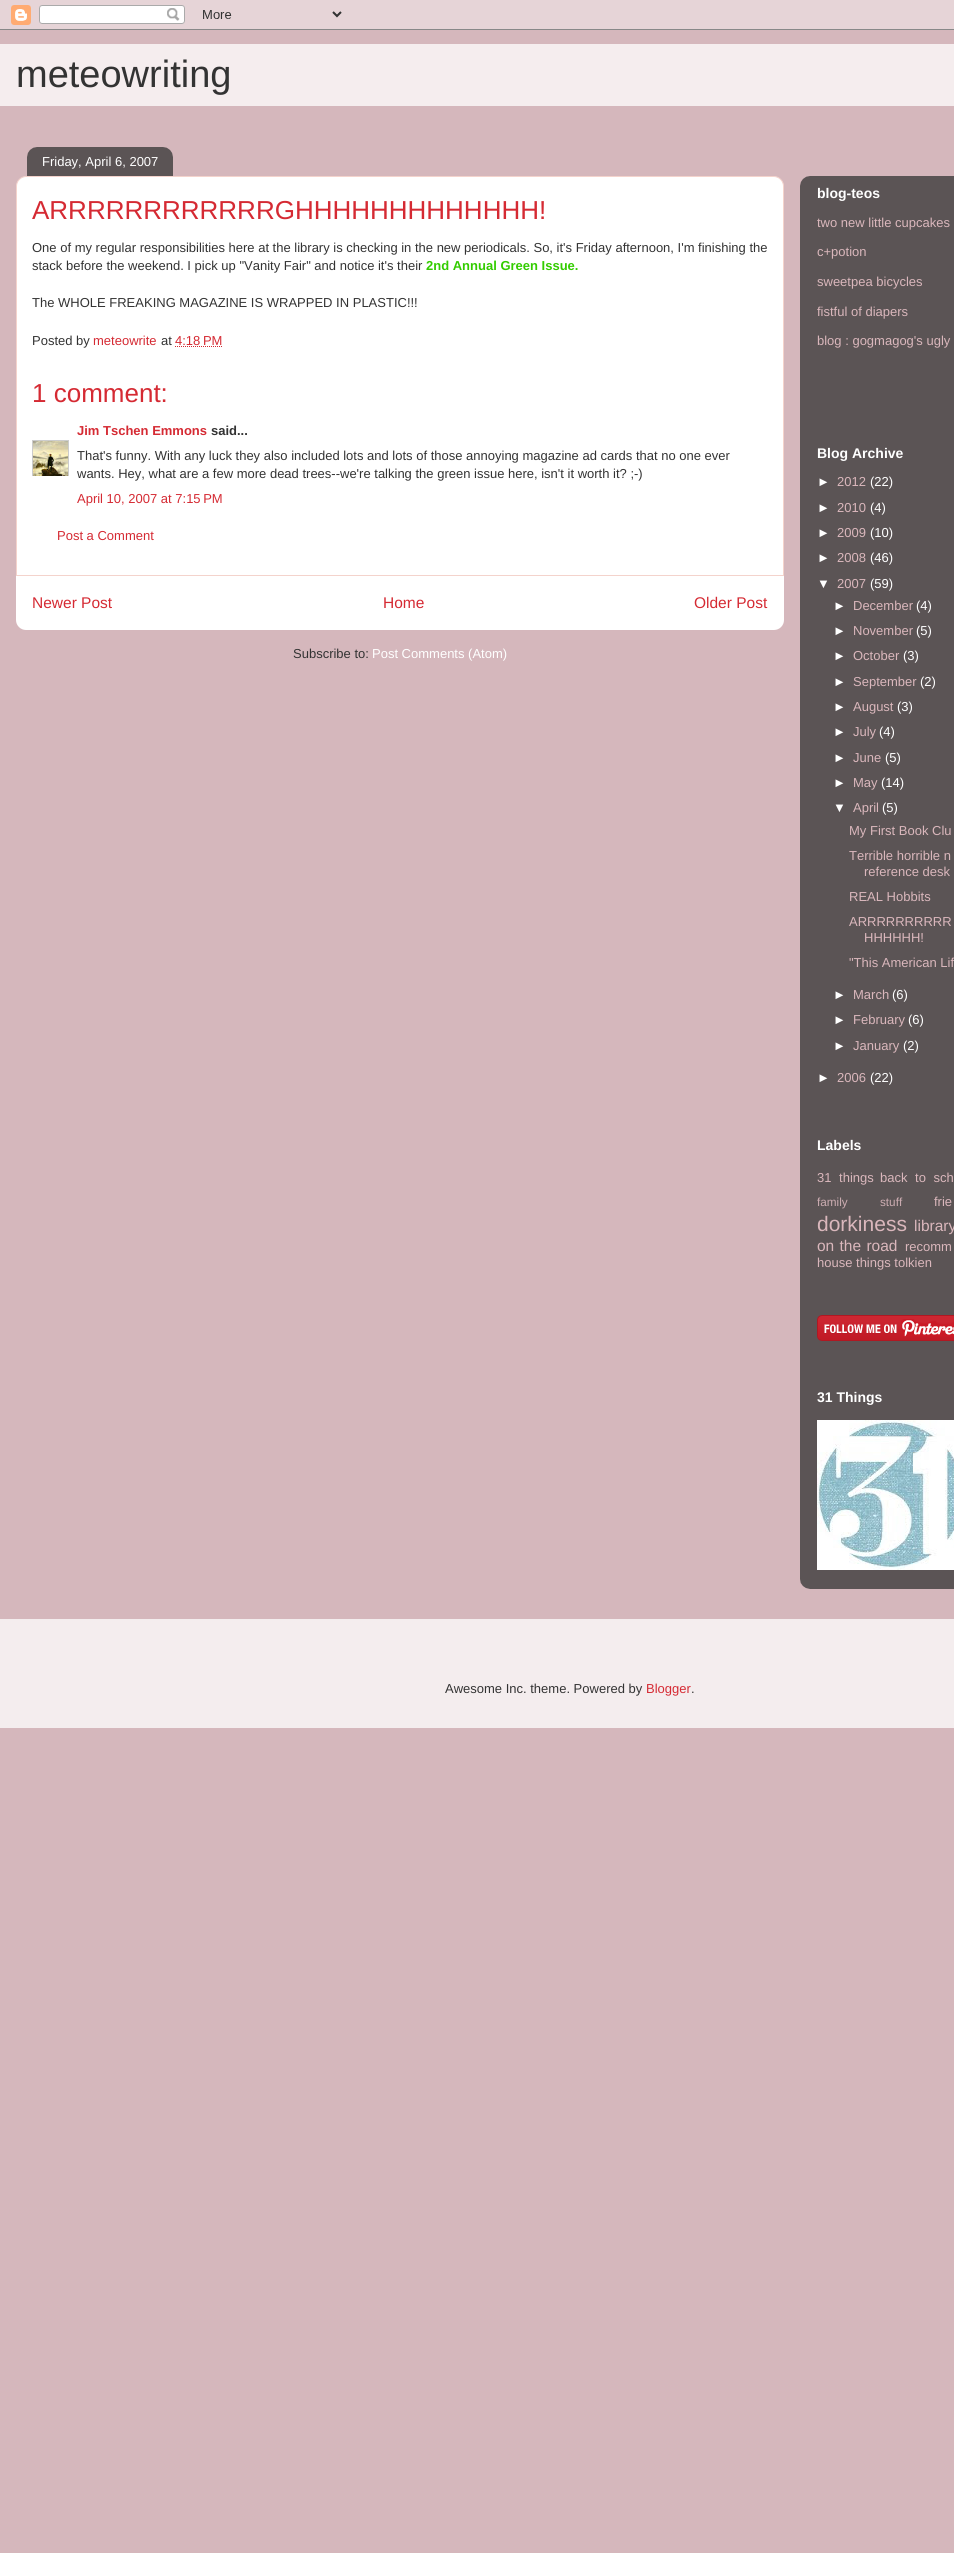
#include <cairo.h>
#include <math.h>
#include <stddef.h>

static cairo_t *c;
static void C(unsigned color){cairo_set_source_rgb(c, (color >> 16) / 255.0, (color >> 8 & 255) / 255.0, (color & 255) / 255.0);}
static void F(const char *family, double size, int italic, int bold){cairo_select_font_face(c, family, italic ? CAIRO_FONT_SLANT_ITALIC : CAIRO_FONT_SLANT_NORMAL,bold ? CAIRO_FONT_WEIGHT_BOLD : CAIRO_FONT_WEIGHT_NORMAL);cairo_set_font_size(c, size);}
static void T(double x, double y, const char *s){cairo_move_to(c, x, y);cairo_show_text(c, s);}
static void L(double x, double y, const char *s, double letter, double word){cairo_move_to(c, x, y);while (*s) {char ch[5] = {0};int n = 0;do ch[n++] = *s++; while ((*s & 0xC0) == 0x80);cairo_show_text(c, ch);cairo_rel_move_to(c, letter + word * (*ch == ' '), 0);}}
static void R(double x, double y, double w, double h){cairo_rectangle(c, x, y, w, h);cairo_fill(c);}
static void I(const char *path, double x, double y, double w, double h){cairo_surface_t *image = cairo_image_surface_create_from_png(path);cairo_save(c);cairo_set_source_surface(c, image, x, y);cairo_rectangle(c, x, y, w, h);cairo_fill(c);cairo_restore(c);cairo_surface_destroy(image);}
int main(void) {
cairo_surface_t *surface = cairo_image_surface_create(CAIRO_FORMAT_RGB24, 954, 2553);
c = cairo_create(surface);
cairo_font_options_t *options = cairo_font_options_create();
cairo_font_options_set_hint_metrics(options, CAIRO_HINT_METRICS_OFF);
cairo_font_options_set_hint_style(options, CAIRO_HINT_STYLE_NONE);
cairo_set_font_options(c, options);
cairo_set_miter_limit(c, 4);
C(0xd5b7bc);
cairo_paint(c);
I("1.png",0,0,954,30);
C(0xf5edee);
R(0,44,954,62);
F("Liberation Sans",38,0,0);
C(0x333333);
T(16,87,"meteowriting");
C(0xffffff);
cairo_new_path(c);
cairo_move_to(c,26,176.5);
cairo_line_to(c,774,176.5);
cairo_curve_to(c,779,176.5,783.5,181,783.5,186);
cairo_line_to(c,783.5,575.5);
cairo_line_to(c,16.5,575.5);
cairo_line_to(c,16.5,186);
cairo_curve_to(c,16.5,181,21,176.5,26,176.5);
cairo_close_path(c);
cairo_fill_preserve(c);
C(0xf4d3cc);
cairo_set_line_width(c,1);
cairo_stroke(c);
I("2.png",27,147,146,29);
F("Liberation Sans",13,0,0);
C(0xffffff);
T(42,166,"Friday, April 6, 2007");
F("Liberation Sans",26,0,0);
C(0xd52a33);
T(32,219,"ARRRRRRRRRRRRGHHHHHHHHHHHHH!");
F("Liberation Sans",13,0,0);
C(0x333333);
T(32,252,"One of my regular responsibilities here at the library is checking in the new periodicals. So, it's Friday afternoon, I'm finishing the");
T(32,270,"stack before the weekend. I pick up \"Vanity Fair\" and notice it's their");
F("Liberation Sans",13,0,1);
C(0x33cc00);
T(426,270,"2nd Annual Green Issue.");
F("Liberation Sans",13,0,0);
C(0x333333);
T(32,307,"The WHOLE FREAKING MAGAZINE IS WRAPPED IN PLASTIC!!!");
T(32,345,"Posted by");
C(0xd52a33);
T(93,345,"meteowrite");
C(0x333333);
T(161,345,"at");
C(0xd52a33);
T(175,345,"4:18 PM");
cairo_new_path(c);
cairo_move_to(c,175,346.5);
cairo_line_to(c,222.5,346.5);
cairo_set_dash(c,(double[]){1,1},2,0);
cairo_stroke(c);
F("Liberation Sans",26,0,0);
T(32,402,"1 comment:");
F("Liberation Sans",13,0,1);
T(77,435,"Jim Tschen Emmons");
C(0x333333);
T(211,435,"said...");
cairo_save(c);
cairo_rectangle(c,32,440,37,36);
cairo_clip(c);
cairo_rectangle(c,32.5,440.5,36,36);
C(0xcccccc);
cairo_set_dash(c,NULL,0,0);
cairo_stroke(c);
cairo_restore(c);
I("3.png",33,441,35,35);
F("Liberation Sans",13,0,0);
T(77,460,"That's funny. With any luck they also included lots and lots of those annoying magazine ad cards that no one ever");
T(77,478,"wants. Hey, what are a few more dead trees--we're talking the green issue here, isn't it worth it? ;-)");
C(0xd52a33);
T(77,503,"April 10, 2007 at 7:15 PM");
T(57,540,"Post a Comment");
C(0xffffff);
cairo_new_path(c);
cairo_move_to(c,16,576);
cairo_line_to(c,784,576);
cairo_line_to(c,784,620);
cairo_curve_to(c,784,625.5,779.5,630,774,630);
cairo_line_to(c,26,630);
cairo_curve_to(c,20.5,630,16,625.5,16,620);
cairo_close_path(c);
cairo_fill(c);
F("Liberation Sans",15.5,0,0);
C(0xd52a33);
T(32,608,"Newer Post");
T(383,608,"Home");
T(694,608,"Older Post");
F("Liberation Sans",13,0,0);
C(0x333333);
T(293,658,"Subscribe to:");
C(0xffffff);
T(372,658,"Post Comments (Atom)");
I("4.png",800,176,154,1413);
F("Liberation Sans",14,0,1);
T(817,198,"blog-teos");
F("Liberation Sans",13,0,0);
C(0xdab7bc);
T(817,227,"two new little cupcakes");
T(817,256,"c+potion");
T(817,286,"sweetpea bicycles");
T(817,316,"fistful of diapers");
T(817,345,"blog : gogmagog's ugly");
F("Liberation Sans",14,0,1);
C(0xffffff);
T(817,458,"Blog Archive");
F("Liberation Sans",13,0,0);
T(817,486,"►");
C(0xdab7bc);
T(837,486,"2012");
C(0xffffff);
T(870,486,"(22)");
T(817,512,"►");
C(0xdab7bc);
T(837,512,"2010");
C(0xffffff);
T(870,512,"(4)");
T(817,537,"►");
C(0xdab7bc);
T(837,537,"2009");
C(0xffffff);
T(870,537,"(10)");
T(817,562,"►");
C(0xdab7bc);
T(837,562,"2008");
C(0xffffff);
T(870,562,"(46)");
T(817,588,"▼");
C(0xdab7bc);
T(837,588,"2007");
C(0xffffff);
T(870,588,"(59)");
T(833,610,"►");
C(0xdab7bc);
T(853,610,"December");
C(0xffffff);
T(916,610,"(4)");
T(833,635,"►");
C(0xdab7bc);
T(853,635,"November");
C(0xffffff);
T(916,635,"(5)");
T(833,660,"►");
C(0xdab7bc);
T(853,660,"October");
C(0xffffff);
T(903,660,"(3)");
T(833,686,"►");
C(0xdab7bc);
T(853,686,"September");
C(0xffffff);
T(920,686,"(2)");
T(833,711,"►");
C(0xdab7bc);
T(853,711,"August");
C(0xffffff);
T(897,711,"(3)");
T(833,736,"►");
C(0xdab7bc);
T(853,736,"July");
C(0xffffff);
T(879,736,"(4)");
T(833,762,"►");
C(0xdab7bc);
T(853,762,"June");
C(0xffffff);
T(885,762,"(5)");
T(833,787,"►");
C(0xdab7bc);
T(853,787,"May");
C(0xffffff);
T(881,787,"(14)");
T(833,812,"▼");
C(0xdab7bc);
T(853,812,"April");
C(0xffffff);
T(882,812,"(5)");
C(0xdab7bc);
T(849,835,"My First Book Clu");
T(849,860,"Terrible horrible n");
T(864,876,"reference desk");
T(849,901,"REAL Hobbits");
T(849,926,"ARRRRRRRRRR");
T(864,942,"HHHHHH!");
T(849,967,"\"This American Lif");
C(0xffffff);
T(833,999,"►");
C(0xdab7bc);
T(853,999,"March");
C(0xffffff);
T(892,999,"(6)");
T(833,1024,"►");
C(0xdab7bc);
T(853,1024,"February");
C(0xffffff);
T(908,1024,"(6)");
T(833,1050,"►");
C(0xdab7bc);
T(853,1050,"January");
C(0xffffff);
T(903,1050,"(2)");
T(817,1082,"►");
C(0xdab7bc);
T(837,1082,"2006");
C(0xffffff);
T(870,1082,"(22)");
F("Liberation Sans",14,0,1);
T(817,1150,"Labels");
F("Liberation Sans",13,0,0);
C(0xdab7bc);
L(817,1182,"31 things",0,4);
L(880,1182,"back to sch",0,4);
F("Liberation Sans",11.75,0,0);
C(0xcdadb2);
L(817,1206,"family stuff",0,29);
F("Liberation Sans",13,0,0);
C(0xdab7bc);
T(934,1206,"frie");
F("Liberation Sans",21,0,0);
T(817,1231,"dorkiness");
F("Liberation Sans",15.5,0,0);
T(914,1231,"library");
L(817,1251,"on the road",0,1);
F("Liberation Sans",13,0,0);
T(905,1251,"recomm");
T(817,1267,"house things tolkien");
I("5.png",817,1315,137,26);
F("Liberation Sans",14,0,1);
C(0xffffff);
T(817,1402,"31 Things");
I("6.png",817,1420,137,150);
C(0xf4edee);
R(0,1619,954,109);
F("Liberation Sans",13,0,0);
C(0x333333);
T(445,1693,"Awesome Inc. theme. Powered by");
C(0xd52a33);
T(646,1693,"Blogger");
C(0x333333);
T(691,1693,".");
cairo_surface_write_to_png(surface, "o.png");
cairo_font_options_destroy(options);
cairo_destroy(c);
cairo_surface_destroy(surface);
return 0;
}
